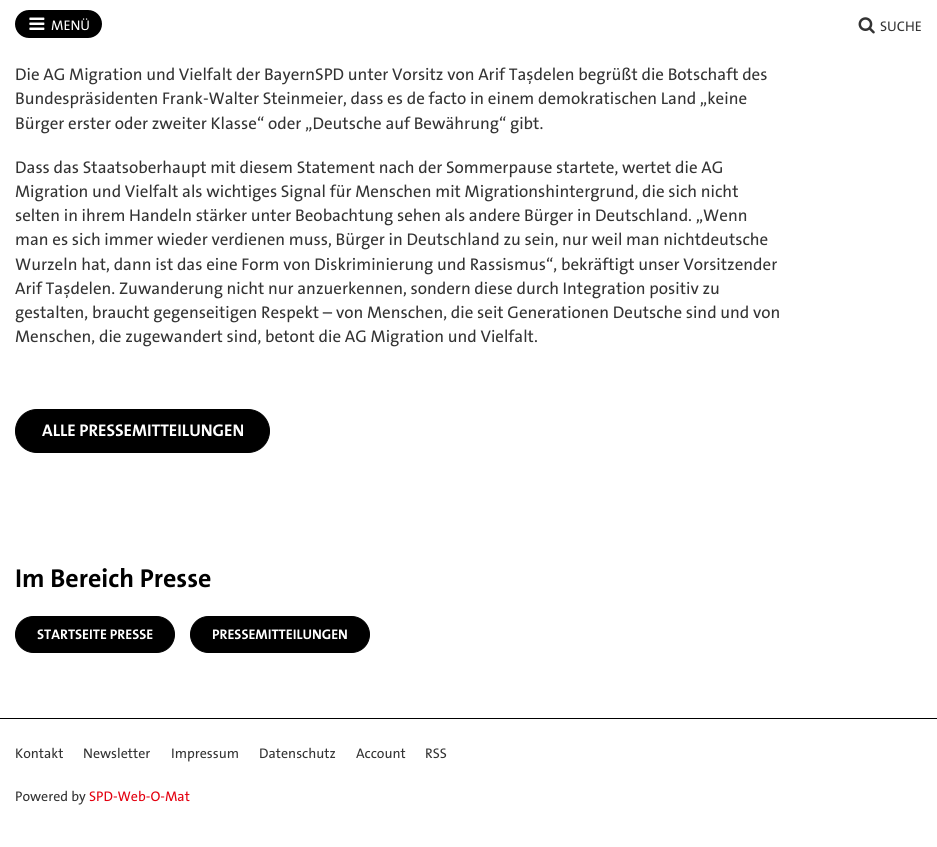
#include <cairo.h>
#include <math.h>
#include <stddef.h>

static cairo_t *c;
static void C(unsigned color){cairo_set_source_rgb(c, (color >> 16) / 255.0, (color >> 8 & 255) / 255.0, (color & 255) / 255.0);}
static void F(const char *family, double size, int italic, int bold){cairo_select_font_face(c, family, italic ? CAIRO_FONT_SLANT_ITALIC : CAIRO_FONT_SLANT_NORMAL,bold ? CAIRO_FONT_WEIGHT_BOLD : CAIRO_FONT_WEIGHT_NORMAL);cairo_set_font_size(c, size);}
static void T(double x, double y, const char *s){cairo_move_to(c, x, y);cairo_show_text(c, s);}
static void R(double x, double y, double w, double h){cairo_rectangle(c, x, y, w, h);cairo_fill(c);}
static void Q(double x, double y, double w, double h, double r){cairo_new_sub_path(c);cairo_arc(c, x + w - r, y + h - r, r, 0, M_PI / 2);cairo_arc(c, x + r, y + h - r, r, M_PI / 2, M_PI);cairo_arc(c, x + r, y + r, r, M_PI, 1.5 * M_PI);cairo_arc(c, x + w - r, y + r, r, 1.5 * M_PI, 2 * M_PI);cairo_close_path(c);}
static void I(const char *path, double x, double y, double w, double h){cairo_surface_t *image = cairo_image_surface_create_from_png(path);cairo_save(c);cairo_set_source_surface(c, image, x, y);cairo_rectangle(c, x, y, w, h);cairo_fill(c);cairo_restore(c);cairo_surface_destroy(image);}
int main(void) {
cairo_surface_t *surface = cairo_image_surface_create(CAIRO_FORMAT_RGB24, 937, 847);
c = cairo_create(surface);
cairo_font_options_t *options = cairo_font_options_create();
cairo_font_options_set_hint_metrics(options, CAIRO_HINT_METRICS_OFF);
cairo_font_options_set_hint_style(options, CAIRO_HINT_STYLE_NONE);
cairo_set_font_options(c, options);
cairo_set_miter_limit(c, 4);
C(0xffffff);
cairo_paint(c);
C(0x000000);
Q(16,11,85,26,13);
cairo_fill_preserve(c);
cairo_stroke(c);
I("1.png",29,17,16,13);
F("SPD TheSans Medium",14,0,0);
C(0xffffff);
T(51,30,"MENÜ");
I("2.png",858,17,17,17);
C(0x333333);
T(880,31,"SUCHE");
F("SPD TheSans Medium",17,0,0);
T(15,80,"Die AG Migration und Vielfalt der BayernSPD unter Vorsitz von Arif Taşdelen begrüßt die Botschaft des");
T(15,104,"Bundespräsidenten Frank-Walter Steinmeier, dass es de facto in einem demokratischen Land „keine");
T(15,129,"Bürger erster oder zweiter Klasse“ oder „Deutsche auf Bewährung“ gibt.");
T(15,173,"Dass das Staatsoberhaupt mit diesem Statement nach der Sommerpause startete, wertet die AG");
T(15,197,"Migration und Vielfalt als wichtiges Signal für Menschen mit Migrationshintergrund, die sich nicht");
T(15,221,"selten in ihrem Handeln stärker unter Beobachtung sehen als andere Bürger in Deutschland. „Wenn");
T(15,245,"man es sich immer wieder verdienen muss, Bürger in Deutschland zu sein, nur weil man nichtdeutsche");
T(15,270,"Wurzeln hat, dann ist das eine Form von Diskriminierung und Rassismus“, bekräftigt unser Vorsitzender");
T(15,294,"Arif Taşdelen. Zuwanderung nicht nur anzuerkennen, sondern diese durch Integration positiv zu");
T(15,318,"gestalten, braucht gegenseitigen Respekt – von Menschen, die seit Generationen Deutsche sind und von");
T(15,342,"Menschen, die zugewandert sind, betont die AG Migration und Vielfalt.");
C(0x000000);
Q(15.5,409.5,254,43,21.5);
cairo_fill_preserve(c);
cairo_set_line_width(c,1);
cairo_stroke(c);
F("SPD TheSans",17,0,1);
C(0xffffff);
T(42,436,"ALLE PRESSEMITTEILUNGEN");
F("SPD TheSans",26,0,1);
C(0x000000);
T(15,587,"Im Bereich Presse");
Q(15.5,616.5,159,36,18);
cairo_fill_preserve(c);
cairo_stroke(c);
F("SPD TheSans",14,0,1);
C(0xffffff);
T(37,639,"STARTSEITE PRESSE");
C(0x000000);
Q(190.5,616.5,179,36,18);
cairo_fill_preserve(c);
cairo_stroke(c);
C(0xffffff);
T(212,639,"PRESSEMITTEILUNGEN");
C(0x000000);
R(0,718,937,1);
F("SPD TheSans Medium",14,0,0);
C(0x333333);
T(15,758,"Kontakt");
T(83,758,"Newsletter");
T(171,758,"Impressum");
T(259,758,"Datenschutz");
T(356,758,"Account");
T(425,758,"RSS");
T(15,801,"Powered by");
C(0xe3000f);
T(89,801,"SPD-Web-O-Mat");
cairo_surface_write_to_png(surface, "o.png");
cairo_font_options_destroy(options);
cairo_destroy(c);
cairo_surface_destroy(surface);
return 0;
}
